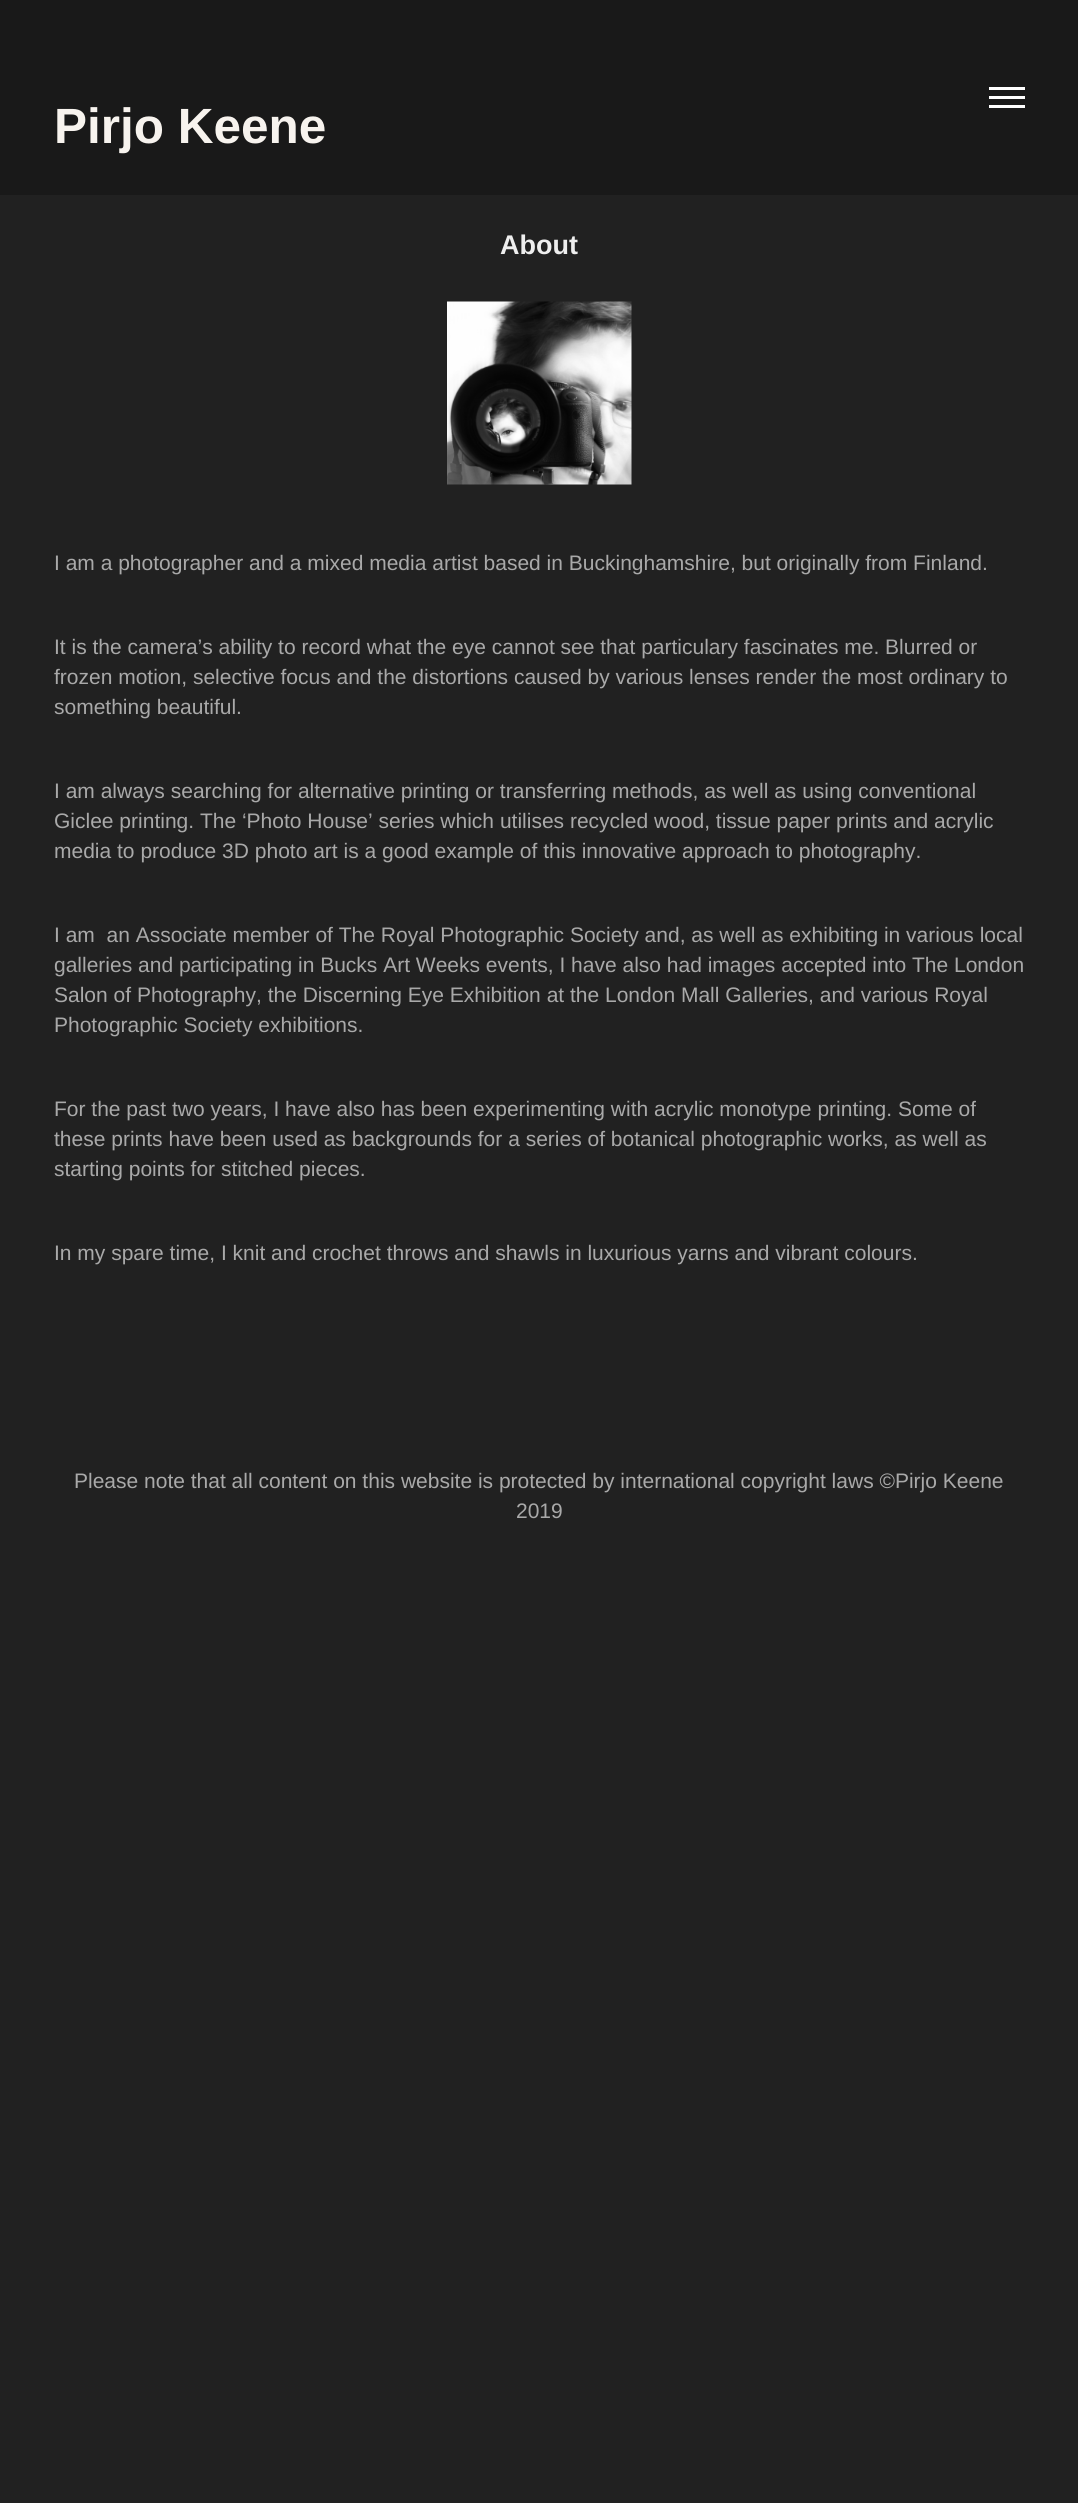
#include <cairo.h>
#include <math.h>
#include <stddef.h>

static cairo_t *c;
static void C(unsigned color){cairo_set_source_rgb(c, (color >> 16) / 255.0, (color >> 8 & 255) / 255.0, (color & 255) / 255.0);}
static void F(const char *family, double size, int italic, int bold){cairo_select_font_face(c, family, italic ? CAIRO_FONT_SLANT_ITALIC : CAIRO_FONT_SLANT_NORMAL,bold ? CAIRO_FONT_WEIGHT_BOLD : CAIRO_FONT_WEIGHT_NORMAL);cairo_set_font_size(c, size);}
static void T(double x, double y, const char *s){cairo_move_to(c, x, y);cairo_show_text(c, s);}
static void R(double x, double y, double w, double h){cairo_rectangle(c, x, y, w, h);cairo_fill(c);}
static void I(const char *path, double x, double y, double w, double h){cairo_surface_t *image = cairo_image_surface_create_from_png(path);cairo_save(c);cairo_set_source_surface(c, image, x, y);cairo_rectangle(c, x, y, w, h);cairo_fill(c);cairo_restore(c);cairo_surface_destroy(image);}
int main(void) {
cairo_surface_t *surface = cairo_image_surface_create(CAIRO_FORMAT_RGB24, 1078, 2503);
c = cairo_create(surface);
cairo_font_options_t *options = cairo_font_options_create();
cairo_font_options_set_hint_metrics(options, CAIRO_HINT_METRICS_OFF);
cairo_font_options_set_hint_style(options, CAIRO_HINT_STYLE_NONE);
cairo_set_font_options(c, options);
cairo_set_miter_limit(c, 4);
C(0x212121);
cairo_paint(c);
C(0x191919);
R(0,0,1078,195);
C(0xffffff);
R(989,87,36,3);
R(989,96,36,3);
R(989,105,36,3);
F("Liberation Sans",49.5,0,1);
C(0xf7f3ee);
T(54,143,"Pirjo Keene");
F("Liberation Sans",27,0,1);
C(0xeeeeee);
T(500,254,"About");
I("1.png",447,301,185,184);
F("Liberation Sans",21,0,0);
C(0xa9a9a9);
T(54,570,"I am a photographer and a mixed media artist based in Buckinghamshire, but originally from Finland.");
T(54,654,"It is the camera’s ability to record what the eye cannot see that particulary fascinates me. Blurred or");
T(54,684,"frozen motion, selective focus and the distortions caused by various lenses render the most ordinary to");
T(54,714,"something beautiful.");
T(54,798,"I am always searching for alternative printing or transferring methods, as well as using conventional");
T(54,828,"Giclee printing. The ‘Photo House’ series which utilises recycled wood, tissue paper prints and acrylic");
T(54,858,"media to produce 3D photo art is a good example of this innovative approach to photography.");
T(54,942,"I am  an Associate member of The Royal Photographic Society and, as well as exhibiting in various local");
T(54,972,"galleries and participating in Bucks Art Weeks events, I have also had images accepted into The London");
T(54,1002,"Salon of Photography, the Discerning Eye Exhibition at the London Mall Galleries, and various Royal");
T(54,1032,"Photographic Society exhibitions.");
T(54,1116,"For the past two years, I have also has been experimenting with acrylic monotype printing. Some of");
T(54,1146,"these prints have been used as backgrounds for a series of botanical photographic works, as well as");
T(54,1176,"starting points for stitched pieces.");
T(54,1260,"In my spare time, I knit and crochet throws and shawls in luxurious yarns and vibrant colours.");
T(74,1488,"Please note that all content on this website is protected by international copyright laws ©Pirjo Keene");
T(516,1518,"2019");
cairo_surface_write_to_png(surface, "o.png");
cairo_font_options_destroy(options);
cairo_destroy(c);
cairo_surface_destroy(surface);
return 0;
}
